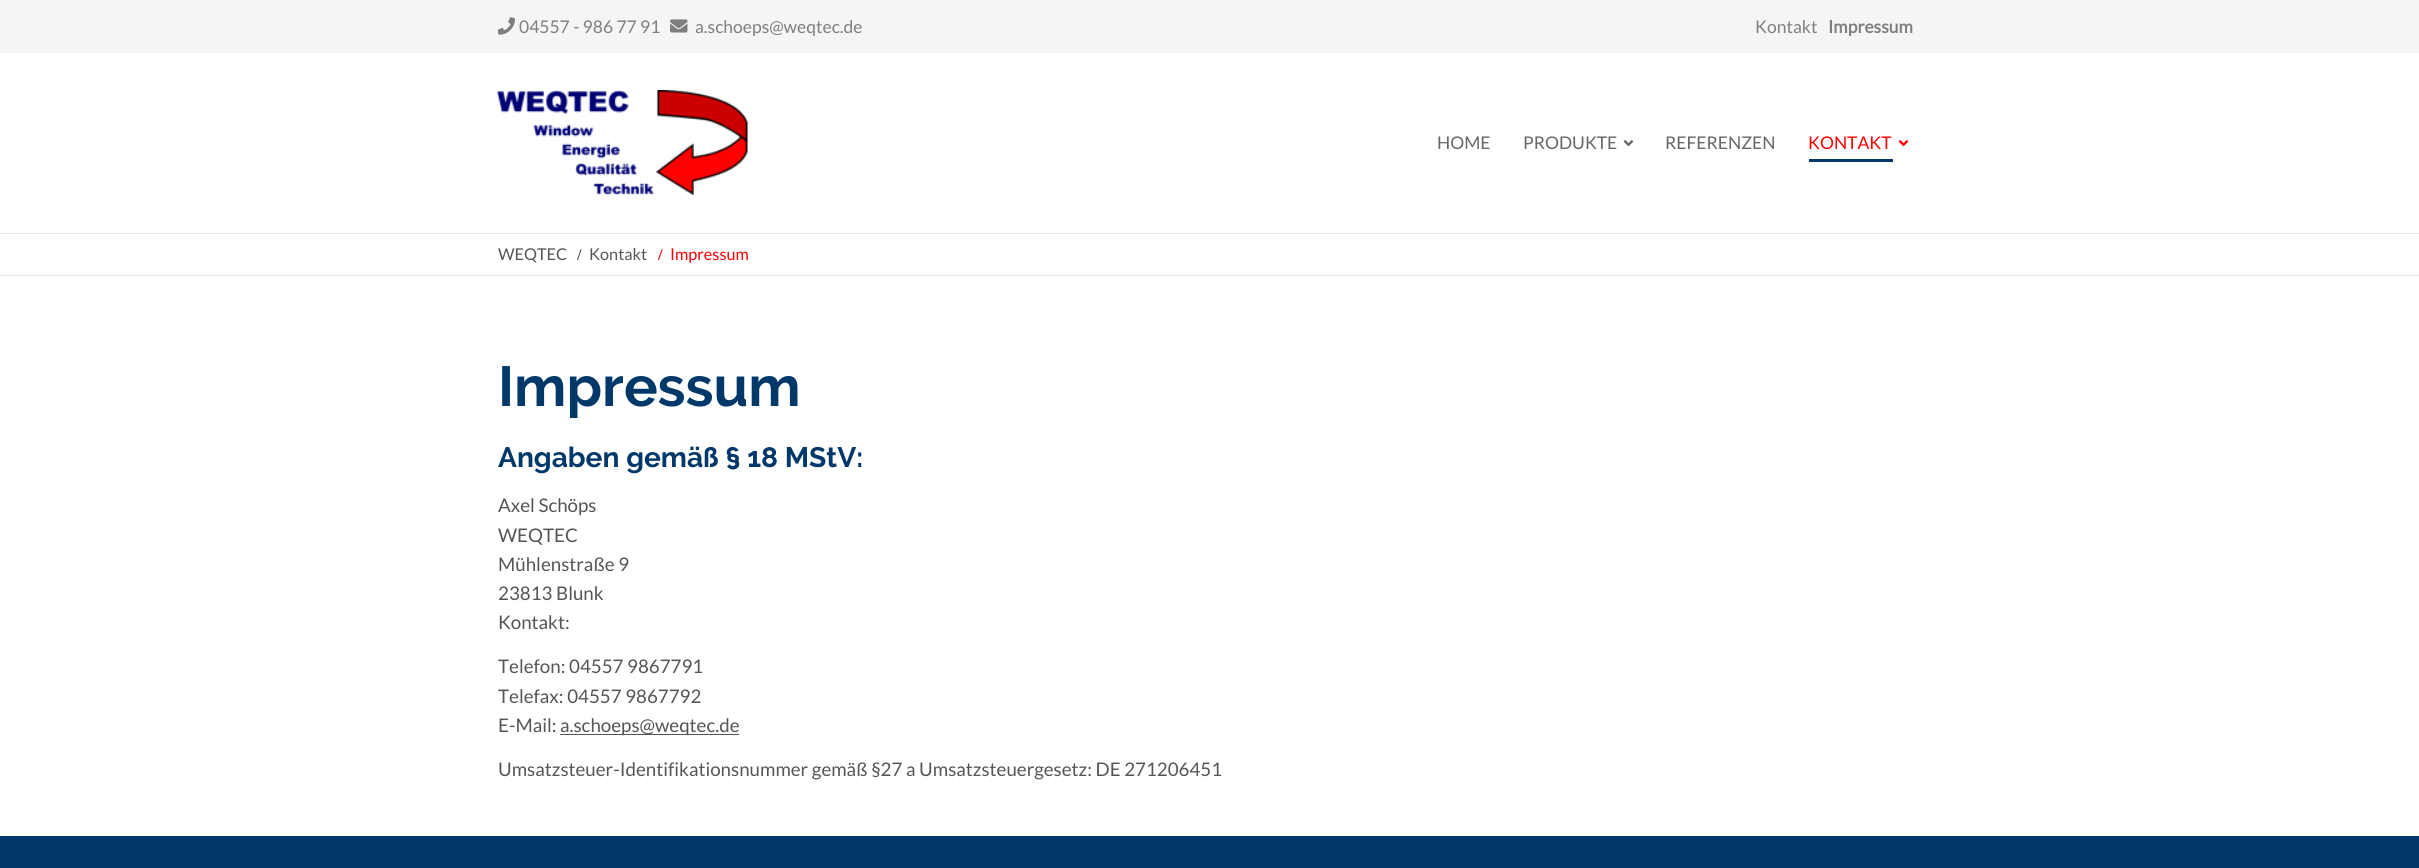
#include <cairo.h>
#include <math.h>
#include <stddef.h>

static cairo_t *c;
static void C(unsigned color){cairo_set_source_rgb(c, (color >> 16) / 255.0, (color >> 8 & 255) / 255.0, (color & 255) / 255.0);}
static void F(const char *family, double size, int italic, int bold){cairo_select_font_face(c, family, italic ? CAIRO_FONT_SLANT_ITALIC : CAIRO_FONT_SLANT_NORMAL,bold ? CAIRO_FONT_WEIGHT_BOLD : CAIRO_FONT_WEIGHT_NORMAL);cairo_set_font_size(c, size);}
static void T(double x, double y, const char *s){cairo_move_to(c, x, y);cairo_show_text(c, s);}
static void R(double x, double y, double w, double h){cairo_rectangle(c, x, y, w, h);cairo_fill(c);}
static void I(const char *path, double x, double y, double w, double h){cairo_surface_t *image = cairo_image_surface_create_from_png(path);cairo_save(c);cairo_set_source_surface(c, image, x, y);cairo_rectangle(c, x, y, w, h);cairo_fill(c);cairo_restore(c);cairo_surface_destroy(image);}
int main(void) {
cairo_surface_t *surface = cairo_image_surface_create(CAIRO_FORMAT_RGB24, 2419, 868);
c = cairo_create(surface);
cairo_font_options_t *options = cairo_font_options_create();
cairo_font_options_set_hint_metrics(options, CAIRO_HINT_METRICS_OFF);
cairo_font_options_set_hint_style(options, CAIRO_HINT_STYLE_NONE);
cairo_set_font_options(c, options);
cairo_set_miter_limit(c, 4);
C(0xffffff);
cairo_paint(c);
C(0xf5f5f5);
R(0,0,2419,53);
I("1.png",498,17,17,18);
F("Lato",17.5,0,0);
C(0x7f7f7f);
T(519,33,"04557 - 986 77 91");
I("2.png",670,19,18,14);
T(695,33,"a.schoeps@weqtec.de");
T(1755,33,"Kontakt");
F("Lato",17.5,0,1);
T(1828,33,"Impressum");
I("3.png",497,90,251,105);
F("Lato",17.5,0,0);
C(0x666666);
T(1437,149,"HOME");
T(1523,149,"PRODUKTE");
I("4.png",1623,140,11,7);
T(1665,149,"REFERENZEN");
C(0xff0000);
T(1808,149,"KONTAKT");
C(0x003869);
R(1809,159,84,3);
I("5.png",1898,140,11,7);
C(0xe6e6e6);
R(0,233,2419,1);
R(0,275,2419,1);
F("Lato",16.25,0,0);
C(0x555555);
T(498,260,"WEQTEC");
F("Liberation Serif",16.25,0,1);
T(577,260,"/");
F("Lato",16.25,0,0);
T(589,260,"Kontakt");
F("Liberation Serif",16.25,0,1);
C(0xff0000);
T(658,260,"/");
F("Lato",16.25,0,0);
T(670,260,"Impressum");
F("Raleway",56.25,0,1);
C(0x003869);
T(498,406,"Impressum");
F("Raleway",28.1,0,1);
T(498,467,"Angaben gemäß § 18 MStV:");
F("Lato",18.75,0,0);
C(0x555555);
T(498,512,"Axel Schöps");
T(498,542,"WEQTEC");
T(498,571,"Mühlenstraße 9");
T(498,600,"23813 Blunk");
T(498,629,"Kontakt:");
T(498,673,"Telefon: 04557 9867791");
T(498,703,"Telefax: 04557 9867792");
T(498,732,"E-Mail:");
R(560,734,179,1);
T(560,732,"a.schoeps@weqtec.de");
T(498,776,"Umsatzsteuer-Identifikationsnummer gemäß §27 a Umsatzsteuergesetz: DE 271206451");
C(0x003869);
R(0,836,2419,32);
cairo_surface_write_to_png(surface, "o.png");
cairo_font_options_destroy(options);
cairo_destroy(c);
cairo_surface_destroy(surface);
return 0;
}
